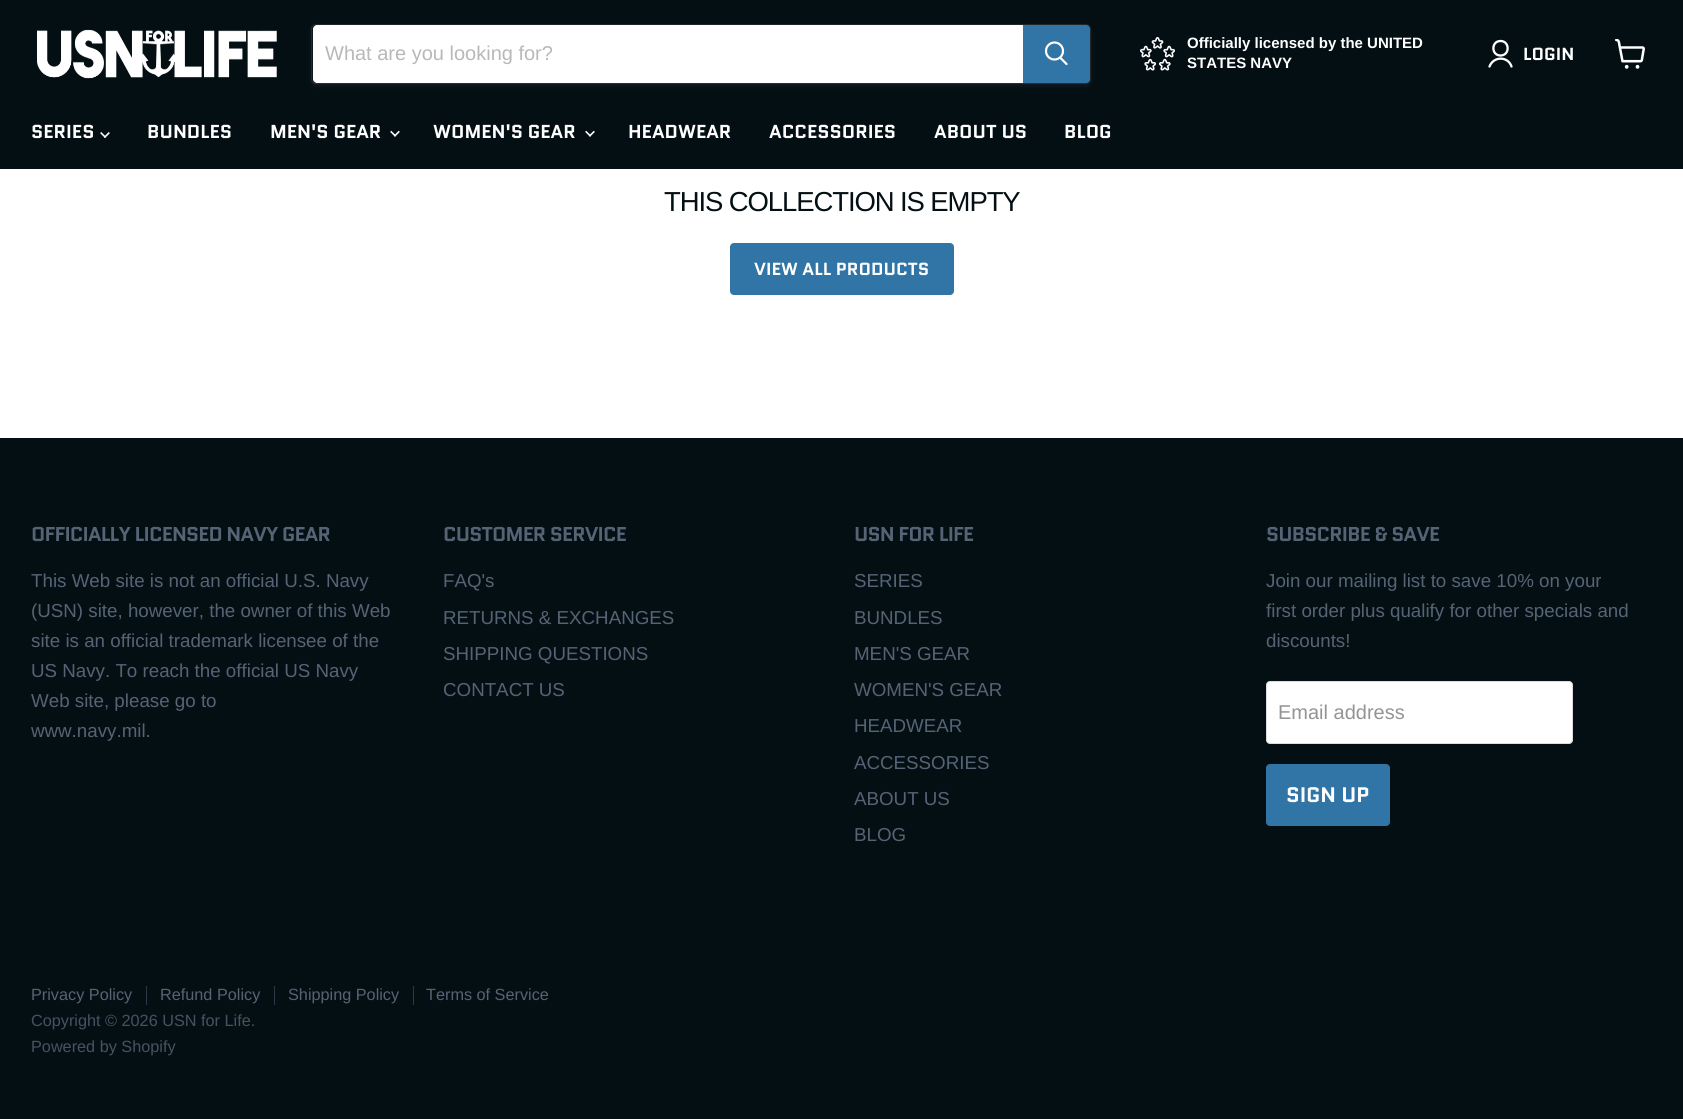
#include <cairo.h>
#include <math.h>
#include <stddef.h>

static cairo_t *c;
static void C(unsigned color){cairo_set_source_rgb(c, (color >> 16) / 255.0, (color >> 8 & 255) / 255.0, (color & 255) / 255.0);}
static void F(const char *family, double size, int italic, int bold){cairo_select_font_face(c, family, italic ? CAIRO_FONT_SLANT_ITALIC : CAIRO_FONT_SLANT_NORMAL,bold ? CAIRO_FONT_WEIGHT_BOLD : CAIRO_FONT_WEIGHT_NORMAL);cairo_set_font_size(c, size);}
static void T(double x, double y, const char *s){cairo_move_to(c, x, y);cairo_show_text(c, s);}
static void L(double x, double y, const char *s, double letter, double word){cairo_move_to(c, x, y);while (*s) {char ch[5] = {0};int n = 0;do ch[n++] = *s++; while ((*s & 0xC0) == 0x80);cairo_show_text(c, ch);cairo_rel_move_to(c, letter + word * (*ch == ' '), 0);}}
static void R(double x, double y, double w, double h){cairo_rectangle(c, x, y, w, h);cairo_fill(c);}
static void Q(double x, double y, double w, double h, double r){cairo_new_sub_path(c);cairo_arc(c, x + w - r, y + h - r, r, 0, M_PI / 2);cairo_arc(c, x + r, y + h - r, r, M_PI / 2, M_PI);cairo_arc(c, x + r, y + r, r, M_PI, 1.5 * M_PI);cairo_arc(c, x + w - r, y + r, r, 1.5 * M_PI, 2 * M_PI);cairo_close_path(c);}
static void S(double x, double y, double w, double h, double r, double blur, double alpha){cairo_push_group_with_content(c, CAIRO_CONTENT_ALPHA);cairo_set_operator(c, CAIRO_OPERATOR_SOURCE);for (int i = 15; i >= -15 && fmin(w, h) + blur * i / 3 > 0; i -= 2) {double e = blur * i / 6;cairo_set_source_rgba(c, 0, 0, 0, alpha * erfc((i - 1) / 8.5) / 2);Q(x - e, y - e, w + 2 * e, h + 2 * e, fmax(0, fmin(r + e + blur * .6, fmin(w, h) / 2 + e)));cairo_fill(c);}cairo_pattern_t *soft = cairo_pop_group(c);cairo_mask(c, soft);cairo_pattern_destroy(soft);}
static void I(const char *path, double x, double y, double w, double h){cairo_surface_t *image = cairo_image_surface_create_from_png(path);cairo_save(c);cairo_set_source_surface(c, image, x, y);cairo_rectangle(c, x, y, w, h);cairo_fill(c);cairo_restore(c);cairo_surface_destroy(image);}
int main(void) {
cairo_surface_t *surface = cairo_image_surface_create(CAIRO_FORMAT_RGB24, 1683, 1119);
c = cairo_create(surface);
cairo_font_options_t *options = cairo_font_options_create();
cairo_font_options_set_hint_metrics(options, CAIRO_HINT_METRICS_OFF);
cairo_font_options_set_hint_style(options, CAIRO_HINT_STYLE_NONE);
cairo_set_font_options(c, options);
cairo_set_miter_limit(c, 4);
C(0xffffff);
cairo_paint(c);
C(0x040f14);
R(0,0,1683,169);
I("1.png",37,29,240,50);
C(0x808080);
S(311,26,780,60,5,2,.11);
Q(311.5,24.5,779,59,4.5);
cairo_set_source_rgba(c,0.502,0.502,0.502,0.2);
cairo_set_line_width(c,1);
cairo_stroke(c);
C(0xffffff);
cairo_new_path(c);
cairo_move_to(c,317,25);
cairo_line_to(c,1023,25);
cairo_line_to(c,1023,83);
cairo_line_to(c,317,83);
cairo_curve_to(c,315,83,313,81,313,79);
cairo_line_to(c,313,29);
cairo_curve_to(c,313,27,315,25,317,25);
cairo_close_path(c);
cairo_fill(c);
F("Liberation Sans",20,0,0);
C(0xb8b8b8);
T(325,60,"What are you looking for?");
C(0x3075a5);
cairo_new_path(c);
cairo_move_to(c,1023.5,25.5);
cairo_line_to(c,1086,25.5);
cairo_curve_to(c,1088,25.5,1089.5,27,1089.5,29);
cairo_line_to(c,1089.5,79);
cairo_curve_to(c,1089.5,81,1088,82.5,1086,82.5);
cairo_line_to(c,1023.5,82.5);
cairo_close_path(c);
cairo_fill_preserve(c);
cairo_stroke(c);
cairo_new_path(c);
cairo_move_to(c,1066.5,64);
cairo_line_to(c,1060.5,58);
C(0xffffff);
cairo_set_line_width(c,2.2);
cairo_set_line_cap(c,CAIRO_LINE_CAP_ROUND);
cairo_stroke(c);
cairo_arc(c,1054.5,51,8.5,0,2 * M_PI);
cairo_set_line_cap(c,CAIRO_LINE_CAP_BUTT);
cairo_stroke(c);
I("2.png",1140,37,35,34);
F("Liberation Sans",15,0,1);
T(1187,48,"Officially licensed by the UNITED");
T(1187,68,"STATES NAVY");
cairo_new_path(c);
cairo_move_to(c,1500.5,55.5);
cairo_curve_to(c,1510,55.5,1510,41,1500.5,41);
cairo_curve_to(c,1491,41,1491,55.5,1500.5,55.5);
cairo_close_path(c);
cairo_move_to(c,1511.5,66.5);
cairo_curve_to(c,1508,56,1493.5,56,1489.5,66.5);
cairo_set_line_width(c,2.3);
cairo_set_line_cap(c,CAIRO_LINE_CAP_ROUND);
cairo_set_line_join(c,CAIRO_LINE_JOIN_ROUND);
cairo_stroke(c);
F("Quantico",17.5,0,1);
T(1523,60,"LOGIN");
I("3.png",1615,39,30,30);
F("Quantico",18.75,0,1);
T(31,138,"SERIES");
I("4.png",100,132,10,6);
T(147,138,"BUNDLES");
T(270,138,"MEN'S GEAR");
I("5.png",390,130,10,7);
T(433,138,"WOMEN'S GEAR");
I("5.png",585,130,10,7);
T(628,138,"HEADWEAR");
T(769,138,"ACCESSORIES");
T(934,138,"ABOUT US");
T(1064,138,"BLOG");
F("Liberation Sans",27.5,0,0);
C(0x040f14);
L(664,211,"THIS COLLECTION IS EMPTY",-1.1,0);
C(0x3075a5);
Q(730.5,243.5,223,51,3.5);
cairo_fill_preserve(c);
cairo_set_line_width(c,1);
cairo_set_line_cap(c,CAIRO_LINE_CAP_BUTT);
cairo_set_line_join(c,CAIRO_LINE_JOIN_MITER);
cairo_stroke(c);
F("Quantico",17.5,0,1);
C(0xffffff);
T(754,275,"VIEW ALL PRODUCTS");
C(0x040f14);
R(0,438,1683,681);
F("Quantico",20,0,1);
C(0x556374);
L(31,541,"OFFICIALLY LICENSED NAVY GEAR",-.8,0);
F("Liberation Sans",18.75,0,0);
T(31,587,"This Web site is not an official U.S. Navy");
T(31,617,"(USN) site, however, the owner of this Web");
T(31,647,"site is an official trademark licensee of the");
T(31,677,"US Navy. To reach the official US Navy");
T(31,707,"Web site, please go to");
T(31,737,"www.navy.mil.");
F("Quantico",20,0,1);
L(443,541,"CUSTOMER SERVICE",-.8,0);
F("Liberation Sans",18.75,0,0);
T(443,587,"FAQ's");
T(443,624,"RETURNS & EXCHANGES");
T(443,660,"SHIPPING QUESTIONS");
T(443,696,"CONTACT US");
F("Quantico",20,0,1);
L(854,541,"USN FOR LIFE",-.8,0);
F("Liberation Sans",18.75,0,0);
T(854,587,"SERIES");
T(854,624,"BUNDLES");
T(854,660,"MEN'S GEAR");
T(854,696,"WOMEN'S GEAR");
T(854,732,"HEADWEAR");
T(854,769,"ACCESSORIES");
T(854,805,"ABOUT US");
T(854,841,"BLOG");
F("Quantico",20,0,1);
L(1266,541,"SUBSCRIBE & SAVE",-.8,0);
F("Liberation Sans",18.75,0,0);
T(1266,587,"Join our mailing list to save 10% on your");
T(1266,617,"first order plus qualify for other specials and");
T(1266,647,"discounts!");
C(0xffffff);
Q(1266.5,681.5,306,62,3.5);
cairo_fill_preserve(c);
C(0xdddddd);
cairo_stroke(c);
F("Liberation Sans",20,0,0);
C(0x949494);
T(1278,719,"Email address");
C(0x3075a5);
Q(1266.5,764.5,123,61,3.5);
cairo_fill_preserve(c);
cairo_stroke(c);
F("Quantico",21,0,1);
C(0xffffff);
T(1286,802,"SIGN UP");
C(0x2d3944);
R(146,986,1,19);
F("Liberation Sans",16.25,0,0);
C(0x556374);
T(31,1000,"Privacy Policy");
C(0x2d3944);
R(274,986,1,19);
C(0x556374);
T(160,1000,"Refund Policy");
C(0x2d3944);
R(413,986,1,19);
C(0x556374);
T(288,1000,"Shipping Policy");
T(426,1000,"Terms of Service");
C(0x455261);
T(31,1026,"Copyright © 2026 USN for Life.");
T(31,1052,"Powered by Shopify");
cairo_surface_write_to_png(surface, "o.png");
cairo_font_options_destroy(options);
cairo_destroy(c);
cairo_surface_destroy(surface);
return 0;
}
